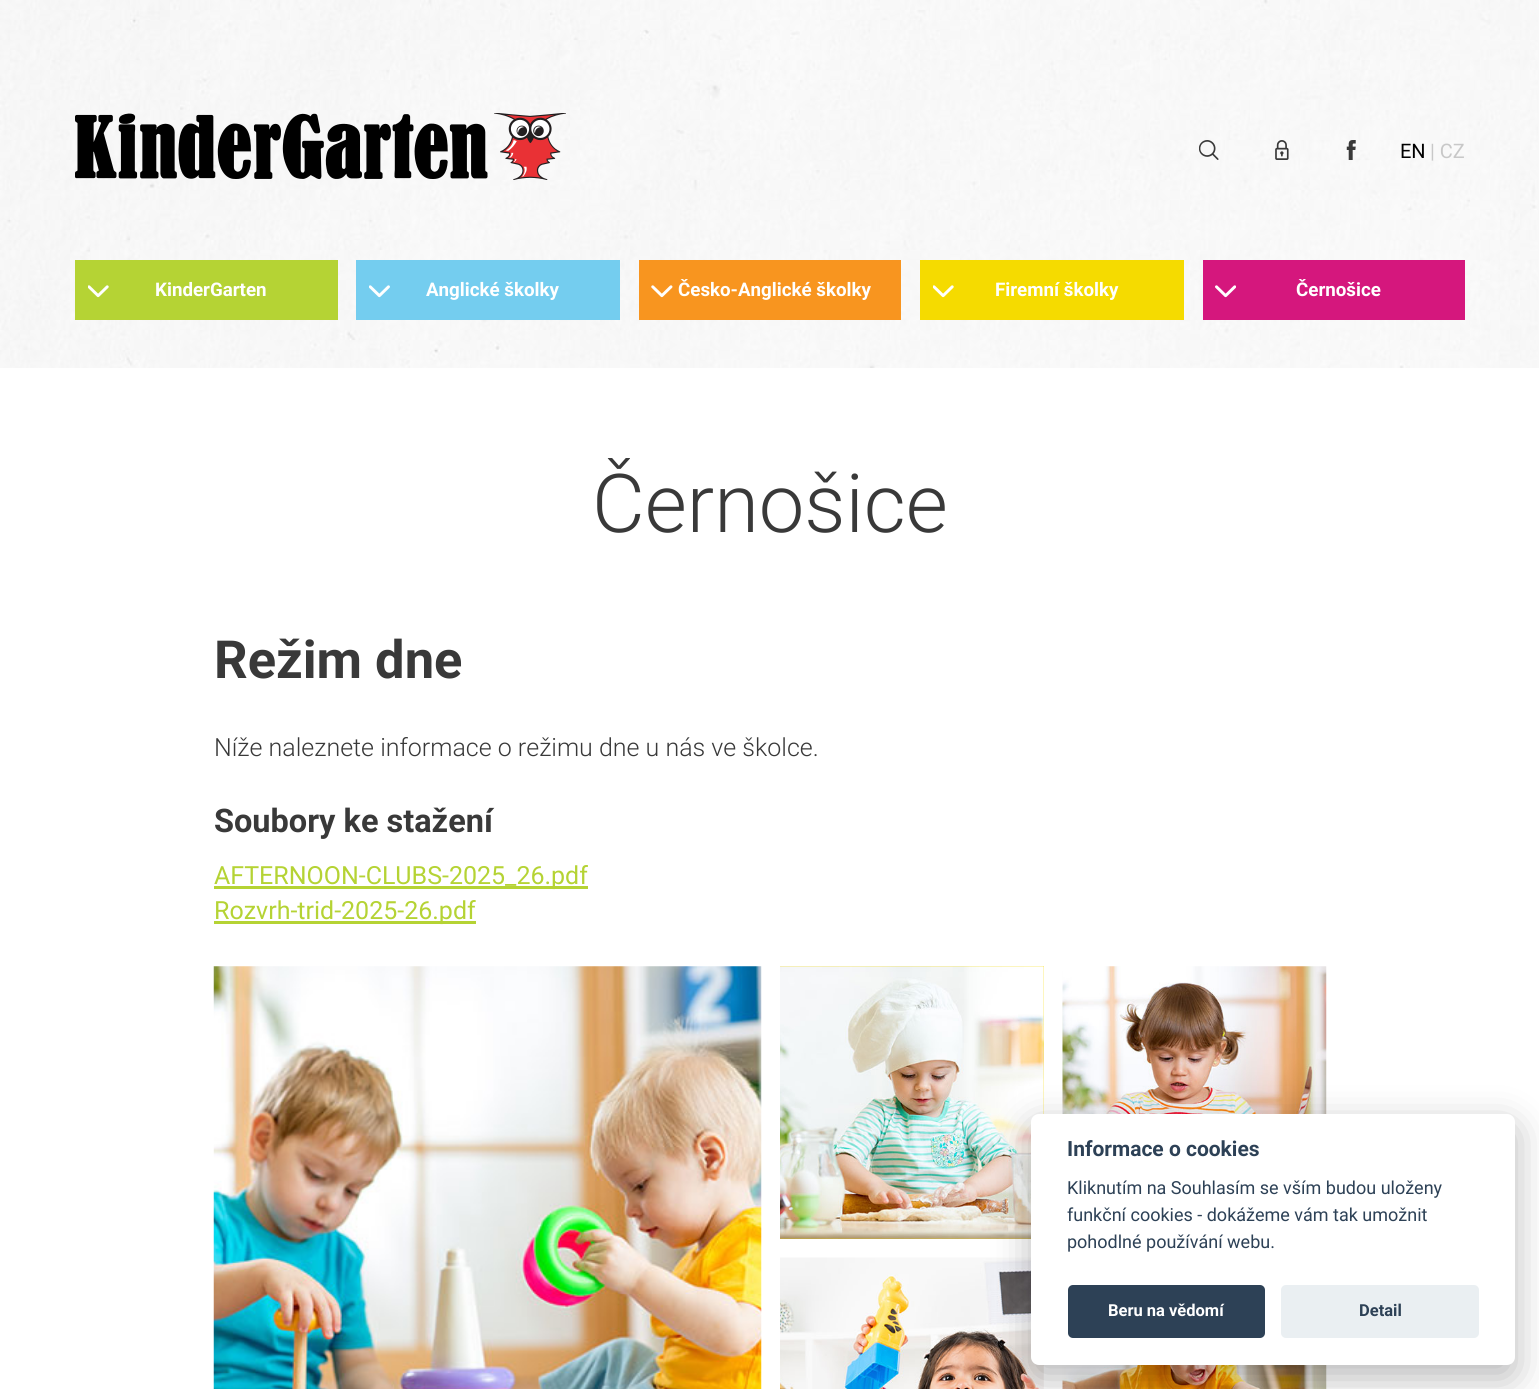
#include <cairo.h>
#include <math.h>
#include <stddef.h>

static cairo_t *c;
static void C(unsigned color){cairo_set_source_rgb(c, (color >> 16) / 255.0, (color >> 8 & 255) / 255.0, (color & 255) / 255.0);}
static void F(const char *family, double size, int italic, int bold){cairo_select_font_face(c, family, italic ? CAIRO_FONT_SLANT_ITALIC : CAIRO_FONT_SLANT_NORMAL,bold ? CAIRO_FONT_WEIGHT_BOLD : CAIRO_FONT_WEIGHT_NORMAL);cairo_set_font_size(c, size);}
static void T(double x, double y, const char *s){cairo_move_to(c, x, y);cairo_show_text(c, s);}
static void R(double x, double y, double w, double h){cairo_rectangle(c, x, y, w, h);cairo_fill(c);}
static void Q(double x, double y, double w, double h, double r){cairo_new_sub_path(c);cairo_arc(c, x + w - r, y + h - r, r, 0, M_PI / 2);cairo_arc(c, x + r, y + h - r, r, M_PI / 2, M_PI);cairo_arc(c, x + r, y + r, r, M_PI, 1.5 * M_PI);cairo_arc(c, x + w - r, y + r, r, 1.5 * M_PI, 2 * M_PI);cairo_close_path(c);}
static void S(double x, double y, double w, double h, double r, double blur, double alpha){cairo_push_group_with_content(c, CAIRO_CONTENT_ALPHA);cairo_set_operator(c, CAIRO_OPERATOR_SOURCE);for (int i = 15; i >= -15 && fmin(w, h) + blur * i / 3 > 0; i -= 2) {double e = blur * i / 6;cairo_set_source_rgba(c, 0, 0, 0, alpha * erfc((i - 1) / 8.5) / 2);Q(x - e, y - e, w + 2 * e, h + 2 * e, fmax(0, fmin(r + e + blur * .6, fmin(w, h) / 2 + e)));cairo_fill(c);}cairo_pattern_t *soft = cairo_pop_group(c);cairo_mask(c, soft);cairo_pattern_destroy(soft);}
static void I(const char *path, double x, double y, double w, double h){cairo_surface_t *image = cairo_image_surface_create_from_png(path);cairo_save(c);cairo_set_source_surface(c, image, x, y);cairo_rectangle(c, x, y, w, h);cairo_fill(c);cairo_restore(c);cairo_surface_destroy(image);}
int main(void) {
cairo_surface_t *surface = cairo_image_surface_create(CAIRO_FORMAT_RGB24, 1539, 1389);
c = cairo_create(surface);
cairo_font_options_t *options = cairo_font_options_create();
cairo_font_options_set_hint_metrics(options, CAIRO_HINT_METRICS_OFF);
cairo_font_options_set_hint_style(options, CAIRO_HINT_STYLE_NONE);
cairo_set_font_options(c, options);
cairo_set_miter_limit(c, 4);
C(0xf8f8f8);
cairo_paint(c);
I("1.png",0,0,1538,368);
I("2.png",75,113,413,67);
I("3.png",494,113,72,67);
I("4.png",1199,140,20,20);
I("5.png",1275,140,14,20);
I("6.png",1346,140,10,20);
F("Roboto",20,0,0);
C(0x000000);
T(1400,158,"EN");
C(0xc8c8c8);
T(1430,158,"| CZ");
C(0xb5d334);
R(75,260,263,60);
I("7.png",88,285,21,13);
F("Roboto",18.75,0,1);
C(0xffffff);
T(155,296,"KinderGarten");
C(0x74cdef);
R(356,260,264,60);
I("8.png",369,285,21,13);
C(0xffffff);
T(426,296,"Anglické školky");
C(0xf8951f);
R(639,260,262,60);
I("9.png",651,285,22,13);
C(0xffffff);
T(678,296,"Česko-Anglické školky");
C(0xf5db00);
R(920,260,264,60);
I("10.png",933,285,21,13);
C(0xffffff);
T(995,296,"Firemní školky");
C(0xd5177d);
R(1203,260,262,60);
I("11.png",1215,285,21,13);
C(0xffffff);
T(1296,296,"Černošice");
R(0,368,1539,1021);
F("Roboto Light",81.25,0,0);
C(0x393939);
T(592,532,"Černošice");
F("Roboto",52.5,0,1);
T(214,678,"Režim dne");
F("Roboto Light",25,0,0);
T(214,756,"Níže naleznete informace o režimu dne u nás ve školce.");
F("Roboto",32.5,0,1);
T(214,832,"Soubory ke stažení");
C(0xb5d334);
R(214,886,374,3);
F("Roboto",25,0,0);
T(214,884,"AFTERNOON-CLUBS-2025_26.pdf");
R(214,921,262,3);
T(214,919,"Rozvrh-trid-2025-26.pdf");
I("12.png",213,966,549,423);
C(0xf5db00);
R(780,966,264,273);
I("13.png",780,966,264,273);
I("14.png",1062,966,265,148);
I("15.png",780,1257,264,132);
I("16.png",1062,1365,265,24);
C(0x020203);
S(1031,1126,484,252,8,19,.28);
C(0xffffff);
Q(1031,1114,484,251,8);
cairo_fill(c);
F("Roboto",21,0,1);
C(0x2d4156);
T(1067,1156,"Informace o cookies");
F("Roboto",18,0,0);
T(1067,1194,"Kliknutím na Souhlasím se vším budou uloženy");
T(1067,1221,"funkční cookies - dokážeme vám tak umožnit");
T(1067,1248,"pohodlné používání webu.");
Q(1068,1285,197,53,5);
cairo_fill(c);
F("Roboto",16.5,0,1);
C(0xffffff);
T(1108,1316,"Beru na vědomí");
C(0xeaeff2);
Q(1281,1285,198,53,5);
cairo_fill(c);
C(0x2d4156);
T(1359,1316,"Detail");
cairo_surface_write_to_png(surface, "o.png");
cairo_font_options_destroy(options);
cairo_destroy(c);
cairo_surface_destroy(surface);
return 0;
}
